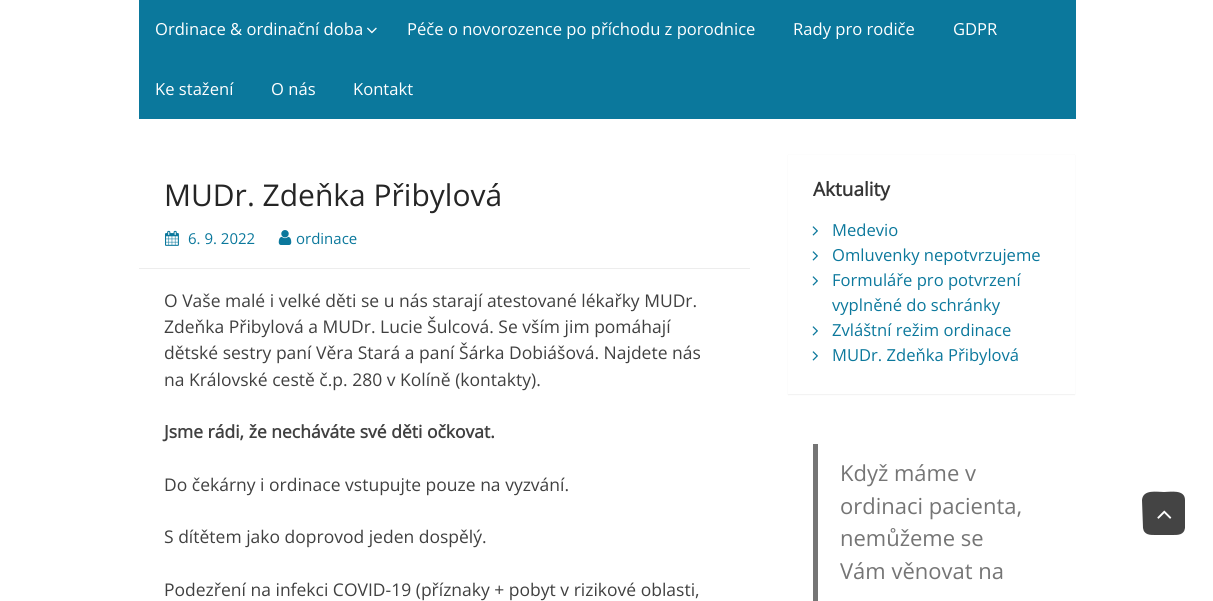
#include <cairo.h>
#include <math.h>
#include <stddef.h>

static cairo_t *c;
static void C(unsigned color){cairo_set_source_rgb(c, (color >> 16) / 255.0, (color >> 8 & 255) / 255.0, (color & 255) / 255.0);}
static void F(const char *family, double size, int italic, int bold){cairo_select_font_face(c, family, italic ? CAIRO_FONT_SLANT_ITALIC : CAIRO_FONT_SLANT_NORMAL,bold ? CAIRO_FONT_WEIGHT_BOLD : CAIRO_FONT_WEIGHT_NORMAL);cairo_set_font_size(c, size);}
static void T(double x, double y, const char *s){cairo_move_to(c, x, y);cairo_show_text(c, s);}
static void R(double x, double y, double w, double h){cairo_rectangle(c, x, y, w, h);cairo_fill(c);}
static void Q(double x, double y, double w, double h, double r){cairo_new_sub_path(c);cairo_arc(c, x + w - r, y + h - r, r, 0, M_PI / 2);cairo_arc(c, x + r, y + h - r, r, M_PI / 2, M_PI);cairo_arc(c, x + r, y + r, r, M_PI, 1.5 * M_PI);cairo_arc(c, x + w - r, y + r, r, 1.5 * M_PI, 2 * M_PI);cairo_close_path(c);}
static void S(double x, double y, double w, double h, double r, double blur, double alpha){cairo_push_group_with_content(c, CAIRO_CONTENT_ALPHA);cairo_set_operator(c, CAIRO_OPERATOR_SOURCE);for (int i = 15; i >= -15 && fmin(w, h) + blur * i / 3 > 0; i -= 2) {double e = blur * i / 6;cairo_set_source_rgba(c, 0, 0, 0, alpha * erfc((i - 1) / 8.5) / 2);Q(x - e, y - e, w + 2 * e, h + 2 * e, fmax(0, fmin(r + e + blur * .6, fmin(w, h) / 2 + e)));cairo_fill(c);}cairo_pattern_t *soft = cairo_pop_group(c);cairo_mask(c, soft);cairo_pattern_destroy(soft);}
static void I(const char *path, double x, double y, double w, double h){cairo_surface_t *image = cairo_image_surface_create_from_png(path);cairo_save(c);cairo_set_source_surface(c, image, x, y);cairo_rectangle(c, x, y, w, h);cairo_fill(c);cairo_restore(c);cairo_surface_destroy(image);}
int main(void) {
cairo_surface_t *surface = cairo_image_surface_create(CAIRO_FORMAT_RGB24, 1213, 601);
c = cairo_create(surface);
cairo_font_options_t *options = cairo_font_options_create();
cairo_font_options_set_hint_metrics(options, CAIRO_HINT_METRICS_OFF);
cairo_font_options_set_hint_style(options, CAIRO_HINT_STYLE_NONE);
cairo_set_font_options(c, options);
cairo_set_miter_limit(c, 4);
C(0xffffff);
cairo_paint(c);
C(0x0b789c);
R(139,0,937,119);
F("Open Sans",16.6,0,0);
C(0xffffff);
T(155,35,"Ordinace & ordinační doba");
I("1.png",367,27,10,7);
T(407,35,"Péče o novorozence po příchodu z porodnice");
T(793,35,"Rady pro rodiče");
T(953,35,"GDPR");
T(155,95,"Ke stažení");
T(271,95,"O nás");
T(353,95,"Kontakt");
C(0xededed);
R(139,268,611,1);
F("Open Sans",30,0,0);
C(0x252525);
T(164,206,"MUDr. Zdeňka Přibylová");
I("2.png",165,230,14,16);
F("Open Sans",15,0,0);
C(0x0b789c);
T(188,244,"6. 9. 2022");
I("3.png",278,230,14,15);
T(296,244,"ordinace");
F("Open Sans",17.5,0,0);
C(0x404040);
T(164,307,"O Vaše malé i velké děti se u nás starají atestované lékařky MUDr.");
T(164,333,"Zdeňka Přibylová a MUDr. Lucie Šulcová. Se vším jim pomáhají");
T(164,359,"dětské sestry paní Věra Stará a paní Šárka Dobiášová. Najdete nás");
T(164,386,"na Královské cestě č.p. 280 v Kolíně (kontakty).");
F("Open Sans",17.5,0,1);
T(164,438,"Jsme rádi, že necháváte své děti očkovat.");
F("Open Sans",17.5,0,0);
T(164,491,"Do čekárny i ordinace vstupujte pouze na vyzvání.");
T(164,543,"S dítětem jako doprovod jeden dospělý.");
T(164,596,"Podezření na infekci COVID-19 (příznaky + pobyt v rizikové oblasti,");
C(0x000000);
S(788,155,287,240,0,.5,.06);
C(0xffffff);
R(788,155,287,239);
F("Open Sans",19,0,1);
C(0x353535);
T(813,196,"Aktuality");
I("4.png",812,226,6,10);
F("Open Sans",16.6,0,0);
C(0x0b789c);
T(832,236,"Medevio");
I("4.png",812,251,6,10);
T(832,261,"Omluvenky nepotvrzujeme");
I("4.png",812,276,6,10);
T(832,286,"Formuláře pro potvrzení");
T(832,311,"vyplněné do schránky");
I("4.png",812,326,6,10);
T(832,336,"Zvláštní režim ordinace");
I("4.png",812,351,6,10);
T(832,361,"MUDr. Zdeňka Přibylová");
C(0x757575);
R(813,444,5,157);
F("Open Sans",22,0,0);
T(840,481,"Když máme v");
T(840,514,"ordinaci pacienta,");
T(840,546,"nemůžeme se");
T(840,579,"Vám věnovat na");
C(0x444444);
cairo_new_path(c);
cairo_move_to(c,1185,500);
cairo_line_to(c,1185,528);
cairo_curve_to(c,1184,535,1178,535,1173,535);
cairo_line_to(c,1155,535);
cairo_curve_to(c,1150,535,1144,535,1143,528);
cairo_line_to(c,1142,500);
cairo_curve_to(c,1143,489,1157,492,1164,492);
cairo_curve_to(c,1170,492,1185,489,1185,500);
cairo_close_path(c);
cairo_fill(c);
I("5.png",1157,510,15,9);
cairo_surface_write_to_png(surface, "o.png");
cairo_font_options_destroy(options);
cairo_destroy(c);
cairo_surface_destroy(surface);
return 0;
}
